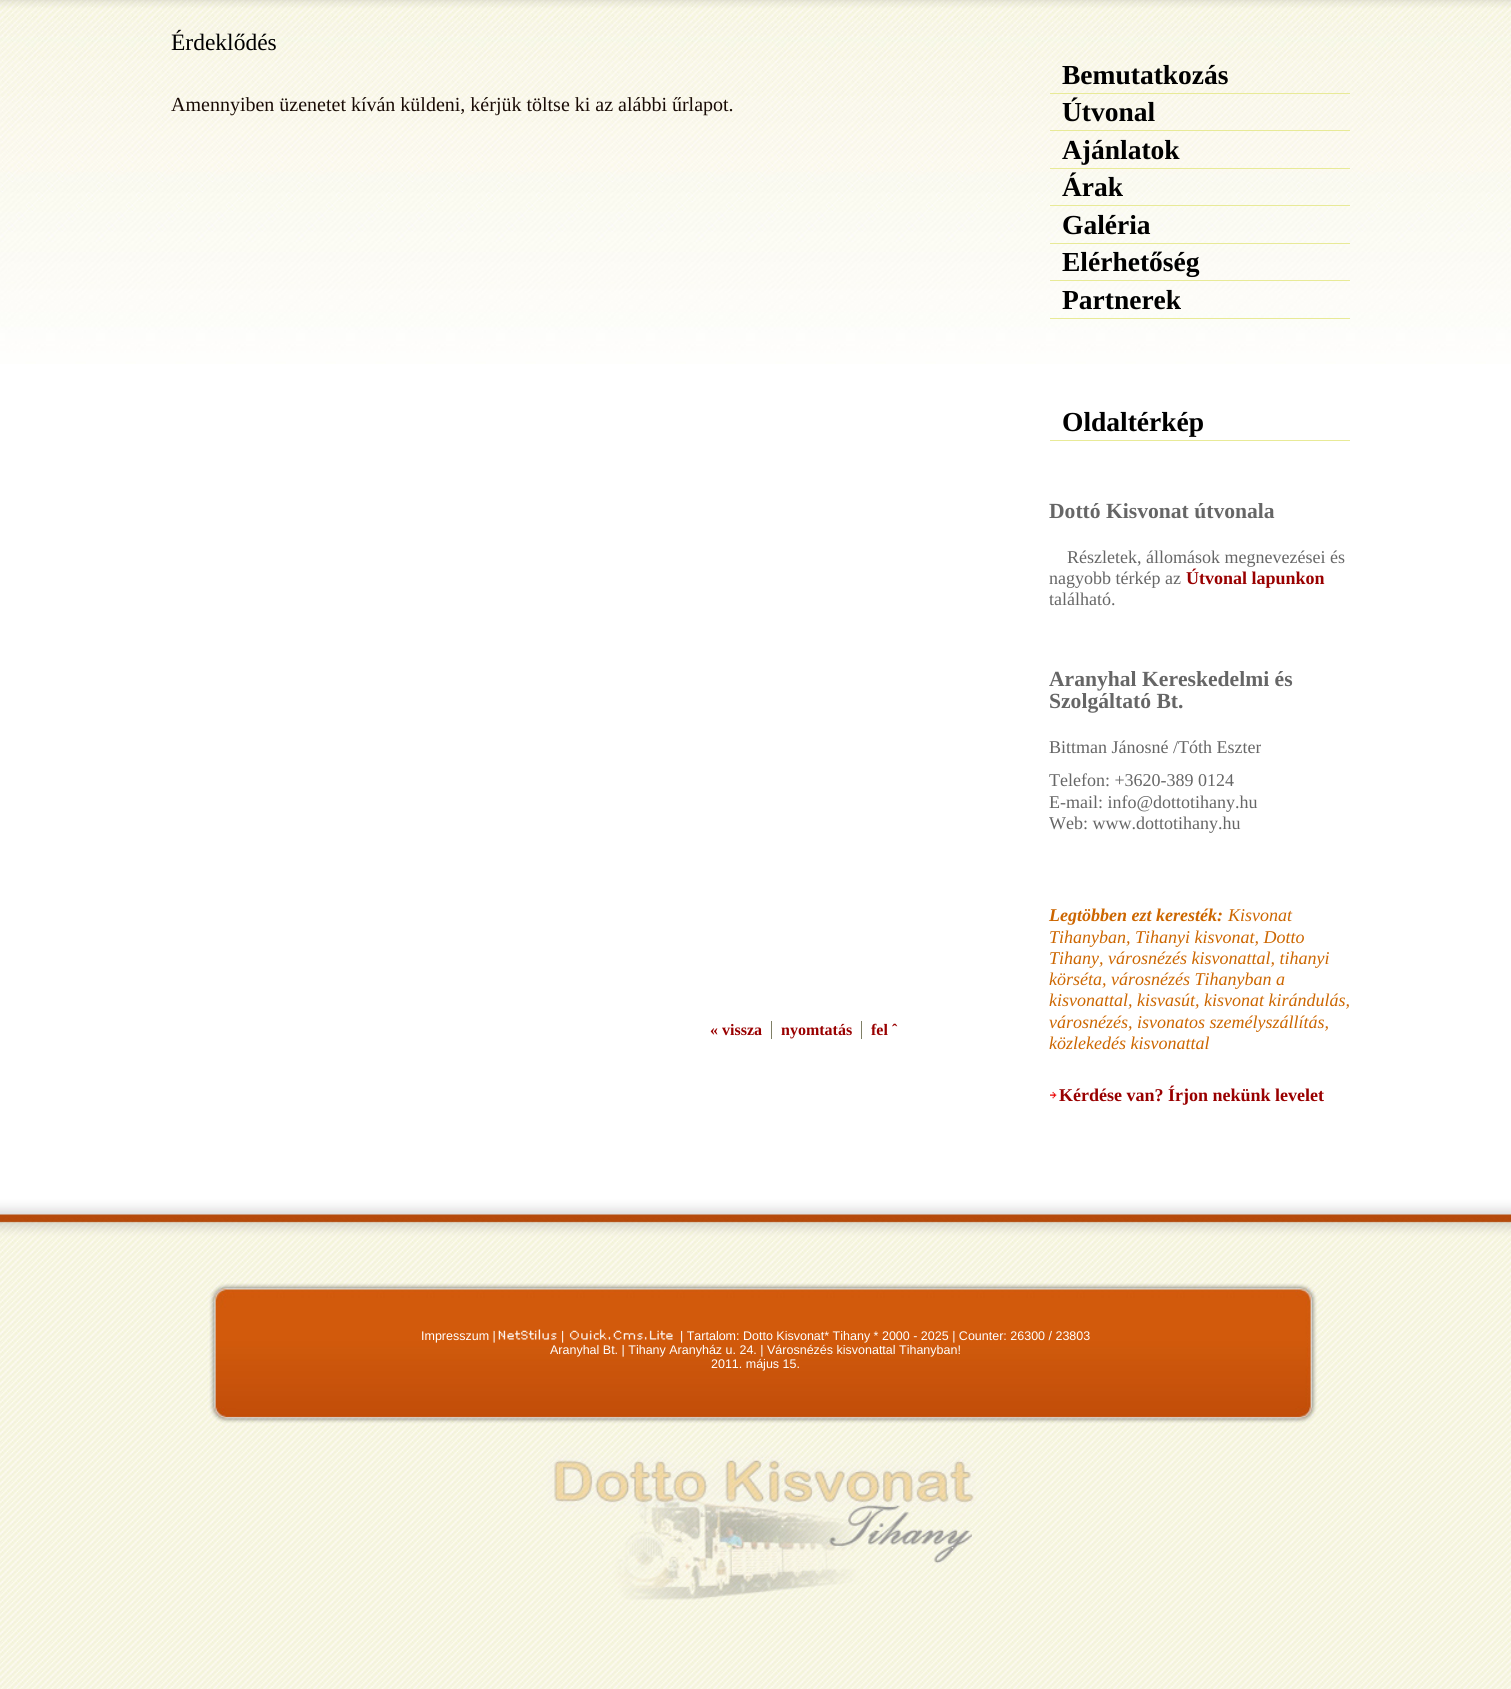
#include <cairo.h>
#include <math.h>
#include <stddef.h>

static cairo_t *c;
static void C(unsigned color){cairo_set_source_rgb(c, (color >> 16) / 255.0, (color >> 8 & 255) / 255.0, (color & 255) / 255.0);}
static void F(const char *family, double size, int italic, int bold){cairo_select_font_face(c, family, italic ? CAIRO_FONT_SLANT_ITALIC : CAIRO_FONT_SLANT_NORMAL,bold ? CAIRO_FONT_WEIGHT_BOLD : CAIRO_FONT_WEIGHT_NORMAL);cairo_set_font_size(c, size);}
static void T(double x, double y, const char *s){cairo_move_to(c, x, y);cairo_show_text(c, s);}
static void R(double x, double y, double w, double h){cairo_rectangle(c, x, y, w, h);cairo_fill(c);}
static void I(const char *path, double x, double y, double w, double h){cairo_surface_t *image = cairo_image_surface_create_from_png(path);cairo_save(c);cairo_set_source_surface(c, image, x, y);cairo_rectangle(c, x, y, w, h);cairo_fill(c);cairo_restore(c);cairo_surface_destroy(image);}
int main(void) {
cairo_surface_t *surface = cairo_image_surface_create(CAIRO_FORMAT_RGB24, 1511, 1689);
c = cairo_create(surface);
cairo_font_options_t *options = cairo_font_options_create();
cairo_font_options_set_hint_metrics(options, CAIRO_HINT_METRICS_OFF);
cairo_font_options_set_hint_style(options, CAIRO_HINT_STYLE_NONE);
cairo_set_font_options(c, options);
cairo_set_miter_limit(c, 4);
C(0xffffff);
cairo_paint(c);
I("1.png",0,0,1511,364);
F("Liberation Serif",23.5,0,0);
C(0x000000);
T(171,50,"Érdeklődés");
F("Liberation Serif",20,0,0);
C(0x190b05);
T(171,111,"Amennyiben üzenetet kíván küldeni, kérjük töltse ki az alábbi űrlapot.");
F("Liberation Serif",16,0,1);
C(0x990000);
T(710,1035,"« vissza");
T(781,1035,"nyomtatás");
C(0x7f7f66);
R(771,1021,1,18);
C(0x990000);
T(871,1035,"fel ˆ");
C(0x7f7f66);
R(861,1021,1,18);
C(0xe8ea97);
R(1050,93,300,1);
F("Liberation Serif",27.5,0,1);
C(0x000000);
T(1062,84,"Bemutatkozás");
C(0xe8ea97);
R(1050,130,300,1);
C(0x000000);
T(1062,121,"Útvonal");
C(0xe8ea97);
R(1050,168,300,1);
C(0x000000);
T(1062,159,"Ajánlatok");
C(0xe8ea97);
R(1050,205,300,1);
C(0x000000);
T(1062,196,"Árak");
C(0xe8ea97);
R(1050,243,300,1);
C(0x000000);
T(1062,234,"Galéria");
C(0xe8ea97);
R(1050,280,300,1);
C(0x000000);
T(1062,271,"Elérhetőség");
C(0xe8ea97);
R(1050,318,300,1);
C(0x000000);
T(1062,309,"Partnerek");
C(0xe8ea97);
R(1050,440,300,1);
C(0x000000);
T(1062,431,"Oldaltérkép");
F("Liberation Serif",21.6,0,1);
C(0x666666);
T(1049,518,"Dottó Kisvonat útvonala");
F("Liberation Serif",18,0,0);
T(1067,563,"Részletek, állomások megnevezései és");
T(1049,584,"nagyobb térkép az");
F("Liberation Serif",18,0,1);
C(0x990000);
T(1186,584,"Útvonal lapunkon");
F("Liberation Serif",18,0,0);
C(0x666666);
T(1049,605,"található.");
F("Liberation Serif",21.6,0,1);
T(1049,686,"Aranyhal Kereskedelmi és");
T(1049,708,"Szolgáltató Bt.");
F("Liberation Serif",18,0,0);
T(1049,753,"Bittman Jánosné /Tóth Eszter");
T(1049,786,"Telefon: +3620-389 0124");
T(1049,808,"E-mail: info@dottotihany.hu");
T(1049,829,"Web: www.dottotihany.hu");
F("Liberation Serif",18,1,1);
C(0xcc6600);
T(1049,921,"Legtöbben ezt keresték:");
F("Liberation Serif",18,1,0);
T(1228,921,"Kisvonat");
T(1049,943,"Tihanyban, Tihanyi kisvonat, Dotto");
T(1049,964,"Tihany, városnézés kisvonattal, tihanyi");
T(1049,985,"körséta, városnézés Tihanyban a");
T(1049,1006,"kisvonattal, kisvasút, kisvonat kirándulás,");
T(1049,1028,"városnézés, isvonatos személyszállítás,");
T(1049,1049,"közlekedés kisvonattal");
I("2.png",1050,1091,7,8);
F("Liberation Serif",18,0,1);
C(0x990000);
T(1059,1101,"Kérdése van? Írjon nekünk levelet");
I("3.png",0,1178,1511,511);
F("Liberation Sans",12.5,0,0);
C(0xffffff);
T(421,1340,"Impresszum |");
I("4.png",498,1329,59,11);
T(561,1340,"|");
I("5.png",569,1329,104,11);
T(680,1340,"| Tartalom: Dotto Kisvonat* Tihany * 2000 - 2025 | Counter: 26300 / 23803");
T(550,1354,"Aranyhal Bt. | Tihany Aranyház u. 24. | Városnézés kisvonattal Tihanyban!");
T(711,1368,"2011. május 15.");
cairo_surface_write_to_png(surface, "o.png");
cairo_font_options_destroy(options);
cairo_destroy(c);
cairo_surface_destroy(surface);
return 0;
}
